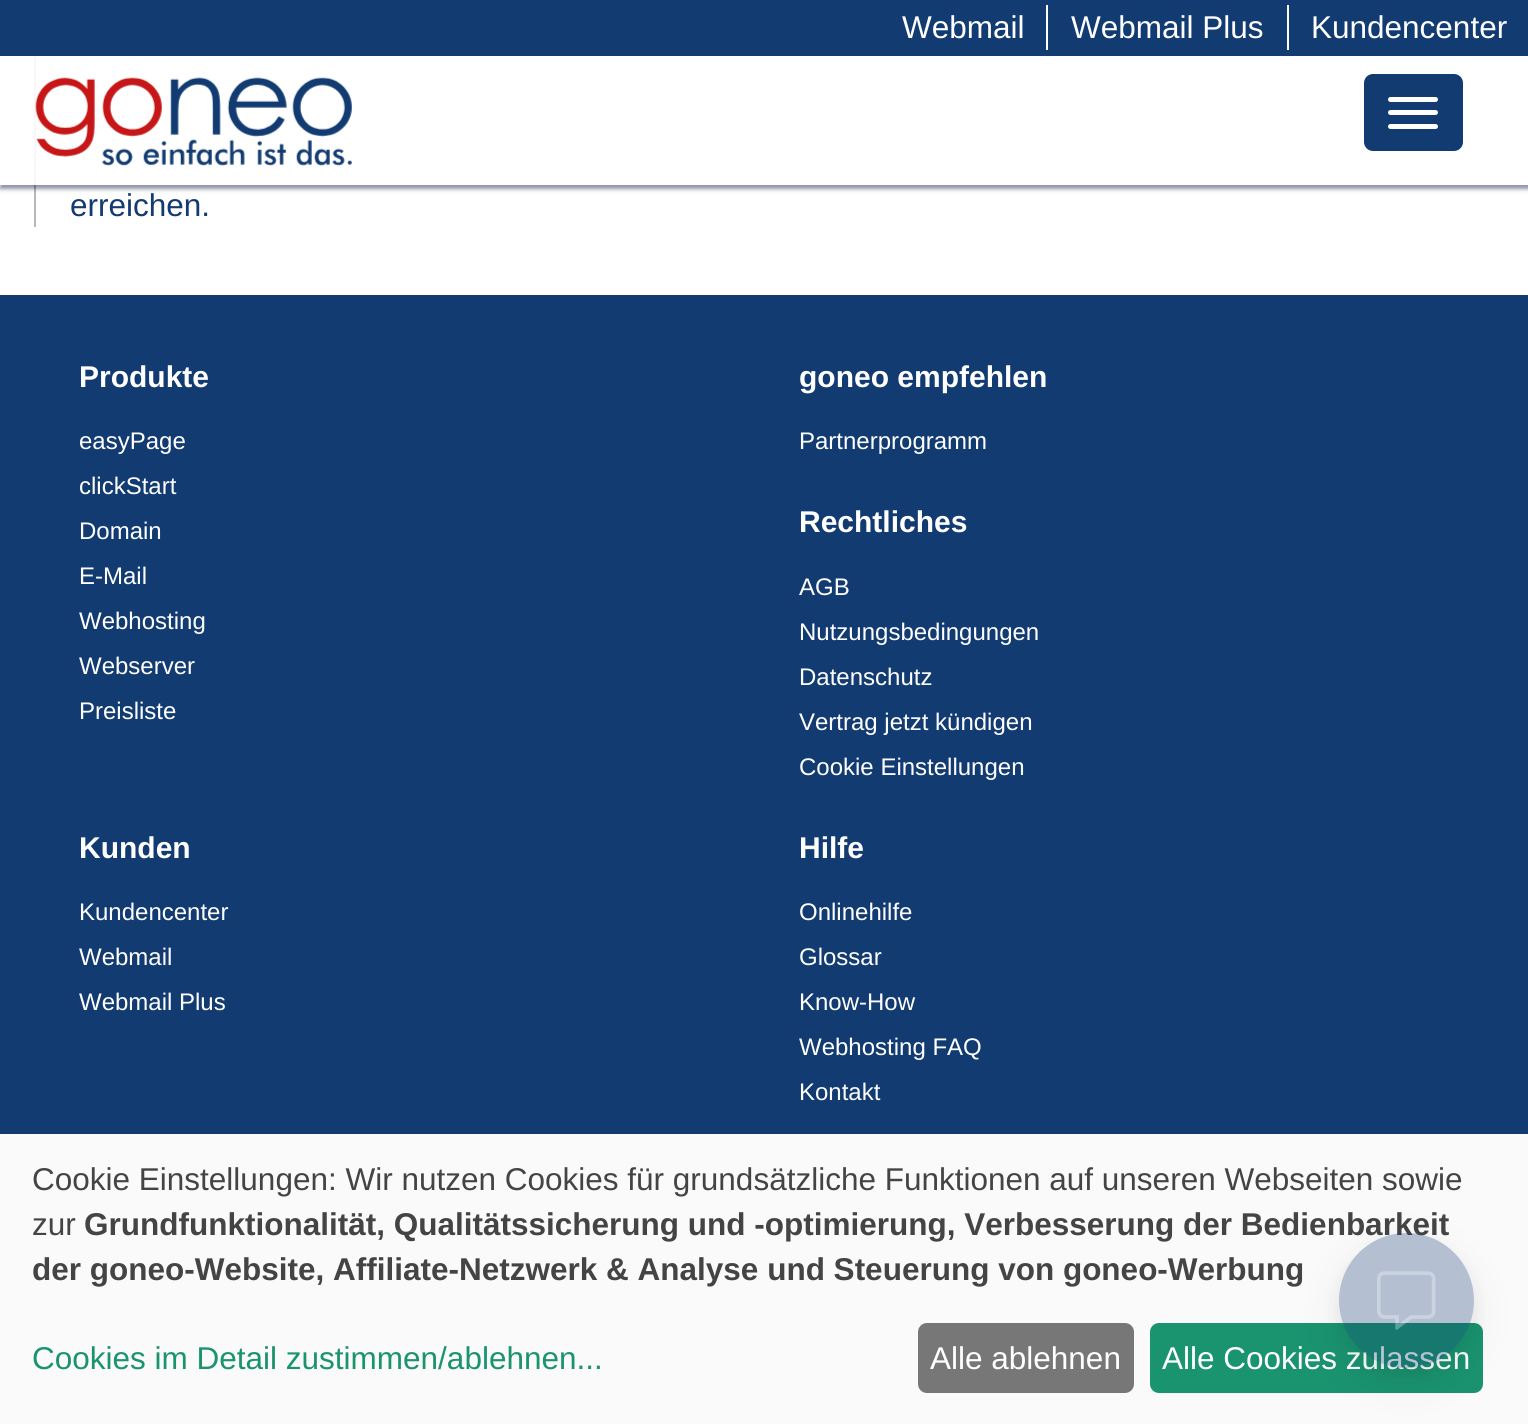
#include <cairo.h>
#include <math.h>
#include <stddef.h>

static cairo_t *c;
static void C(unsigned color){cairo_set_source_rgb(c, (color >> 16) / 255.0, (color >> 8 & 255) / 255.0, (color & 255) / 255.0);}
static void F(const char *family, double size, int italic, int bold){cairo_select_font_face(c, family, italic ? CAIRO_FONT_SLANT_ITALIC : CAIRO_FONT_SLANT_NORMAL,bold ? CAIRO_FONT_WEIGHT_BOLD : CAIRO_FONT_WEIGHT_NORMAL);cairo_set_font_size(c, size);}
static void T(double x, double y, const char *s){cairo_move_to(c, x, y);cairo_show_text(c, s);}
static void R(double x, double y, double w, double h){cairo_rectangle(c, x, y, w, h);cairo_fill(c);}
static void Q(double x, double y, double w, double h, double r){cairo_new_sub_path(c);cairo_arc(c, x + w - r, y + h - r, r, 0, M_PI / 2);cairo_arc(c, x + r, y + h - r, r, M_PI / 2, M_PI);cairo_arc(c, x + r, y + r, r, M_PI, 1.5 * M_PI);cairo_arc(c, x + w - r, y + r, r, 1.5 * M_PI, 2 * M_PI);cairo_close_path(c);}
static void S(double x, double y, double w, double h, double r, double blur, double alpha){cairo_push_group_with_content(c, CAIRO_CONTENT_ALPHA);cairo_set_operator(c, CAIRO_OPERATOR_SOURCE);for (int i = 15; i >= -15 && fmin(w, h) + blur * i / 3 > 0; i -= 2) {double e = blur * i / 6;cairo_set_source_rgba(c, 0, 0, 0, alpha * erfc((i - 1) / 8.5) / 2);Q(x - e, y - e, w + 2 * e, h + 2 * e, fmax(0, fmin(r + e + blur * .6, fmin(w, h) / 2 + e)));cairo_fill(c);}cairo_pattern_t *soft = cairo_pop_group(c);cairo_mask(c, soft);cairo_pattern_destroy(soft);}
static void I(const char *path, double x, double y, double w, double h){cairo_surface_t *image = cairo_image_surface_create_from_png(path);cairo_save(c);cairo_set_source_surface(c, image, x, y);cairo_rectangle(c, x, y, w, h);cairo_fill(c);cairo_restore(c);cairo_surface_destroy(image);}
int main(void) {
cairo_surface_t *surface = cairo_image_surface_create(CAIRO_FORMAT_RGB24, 1528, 1424);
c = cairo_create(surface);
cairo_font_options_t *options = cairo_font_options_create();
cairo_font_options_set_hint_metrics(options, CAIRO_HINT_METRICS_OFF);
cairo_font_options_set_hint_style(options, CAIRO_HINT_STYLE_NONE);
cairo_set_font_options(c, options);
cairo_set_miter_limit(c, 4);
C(0xffffff);
cairo_paint(c);
C(0x123b72);
R(0,0,1528,56);
F("Liberation Sans",31.5,0,0);
C(0xffffff);
T(902,38,"Webmail");
R(1046,5,2,45);
T(1071,38,"Webmail Plus");
R(1287,5,2,45);
T(1311,38,"Kundencenter");
C(0xb7b7b7);
R(34,56,2,171);
cairo_save(c);
cairo_set_fill_rule(c,CAIRO_FILL_RULE_EVEN_ODD);
cairo_new_path(c);
cairo_move_to(c,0,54);
cairo_line_to(c,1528,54);
cairo_line_to(c,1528,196);
cairo_line_to(c,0,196);
cairo_close_path(c);
cairo_move_to(c,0,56);
cairo_line_to(c,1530,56);
cairo_line_to(c,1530,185);
cairo_line_to(c,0,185);
cairo_close_path(c);
cairo_clip(c);
C(0x040e35);
S(0,61,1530,128,0,2,.45);
cairo_restore(c);
cairo_set_source_rgba(c,1,1,1,0.9);
R(0,56,1528,129);
I("1.png",35,77,317,89);
C(0x123b72);
Q(1364,74,99,77,9);
cairo_fill(c);
C(0xffffff);
Q(1388,97,50,5,2.5);
cairo_fill(c);
Q(1388,110,50,5,2.5);
cairo_fill(c);
Q(1388,124,50,5,2.5);
cairo_fill(c);
C(0x123b72);
T(70,216,"erreichen.");
R(0,295,1528,839);
F("Liberation Sans",30,0,1);
C(0xffffff);
T(79,387,"Produkte");
F("Liberation Sans",24,0,0);
T(79,449,"easyPage");
T(79,494,"clickStart");
T(79,539,"Domain");
T(79,584,"E-Mail");
T(79,629,"Webhosting");
T(79,674,"Webserver");
T(79,719,"Preisliste");
F("Liberation Sans",30,0,1);
T(799,387,"goneo empfehlen");
F("Liberation Sans",24,0,0);
T(799,449,"Partnerprogramm");
F("Liberation Sans",30,0,1);
T(799,532,"Rechtliches");
F("Liberation Sans",24,0,0);
T(799,595,"AGB");
T(799,640,"Nutzungsbedingungen");
T(799,685,"Datenschutz");
T(799,730,"Vertrag jetzt kündigen");
T(799,775,"Cookie Einstellungen");
F("Liberation Sans",30,0,1);
T(79,858,"Kunden");
F("Liberation Sans",24,0,0);
T(79,920,"Kundencenter");
T(79,965,"Webmail");
T(79,1010,"Webmail Plus");
F("Liberation Sans",30,0,1);
T(799,858,"Hilfe");
F("Liberation Sans",24,0,0);
T(799,920,"Onlinehilfe");
T(799,965,"Glossar");
T(799,1010,"Know-How");
T(799,1055,"Webhosting FAQ");
T(799,1100,"Kontakt");
C(0xfafafa);
R(0,1134,1528,290);
F("Liberation Sans",31.5,0,0);
C(0x444444);
T(32,1190,"Cookie Einstellungen: Wir nutzen Cookies für grundsätzliche Funktionen auf unseren Webseiten sowie");
T(32,1235,"zur");
F("Liberation Sans",31.5,0,1);
T(84,1235,"Grundfunktionalität, Qualitätssicherung und -optimierung, Verbesserung der Bedienbarkeit");
T(32,1280,"der goneo-Website, Affiliate-Netzwerk & Analyse und Steuerung von goneo-Werbung");
F("Liberation Sans",31.5,0,0);
C(0x1a936f);
T(32,1369,"Cookies im Detail zustimmen/ablehnen...");
C(0x777777);
Q(918,1323,216,70,9);
cairo_fill(c);
C(0xffffff);
T(930,1369,"Alle ablehnen");
C(0x1a936f);
Q(1150,1323,333,70,9);
cairo_fill(c);
C(0xffffff);
T(1162,1369,"Alle Cookies zulassen");
cairo_save(c);
cairo_set_fill_rule(c,CAIRO_FILL_RULE_EVEN_ODD);
cairo_new_path(c);
cairo_move_to(c,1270,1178);
cairo_line_to(c,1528,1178);
cairo_line_to(c,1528,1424);
cairo_line_to(c,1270,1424);
cairo_close_path(c);
cairo_move_to(c,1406.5,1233);
cairo_curve_to(c,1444,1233,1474,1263,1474,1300.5);
cairo_curve_to(c,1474,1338,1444,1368,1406.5,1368);
cairo_curve_to(c,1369,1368,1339,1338,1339,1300.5);
cairo_curve_to(c,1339,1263,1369,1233,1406.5,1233);
cairo_close_path(c);
cairo_clip(c);
C(0x000000);
S(1339,1247,135,135,67.5,22.5,.06);
cairo_restore(c);
cairo_save(c);
cairo_set_fill_rule(c,CAIRO_FILL_RULE_EVEN_ODD);
cairo_new_path(c);
cairo_move_to(c,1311,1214);
cairo_line_to(c,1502,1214);
cairo_line_to(c,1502,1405);
cairo_line_to(c,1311,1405);
cairo_close_path(c);
cairo_move_to(c,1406.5,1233);
cairo_curve_to(c,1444,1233,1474,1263,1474,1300.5);
cairo_curve_to(c,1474,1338,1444,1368,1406.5,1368);
cairo_curve_to(c,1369,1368,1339,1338,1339,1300.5);
cairo_curve_to(c,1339,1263,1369,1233,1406.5,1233);
cairo_close_path(c);
cairo_clip(c);
C(0x000000);
S(1339,1242,135,135,67.5,9,.06);
cairo_restore(c);
cairo_set_source_rgba(c,0.071,0.231,0.447,0.3);
cairo_arc(c,1406.5,1300.5,67.5,0,2 * M_PI);
cairo_fill(c);
I("2.png",1377,1271,59,59);
cairo_surface_write_to_png(surface, "o.png");
cairo_font_options_destroy(options);
cairo_destroy(c);
cairo_surface_destroy(surface);
return 0;
}
